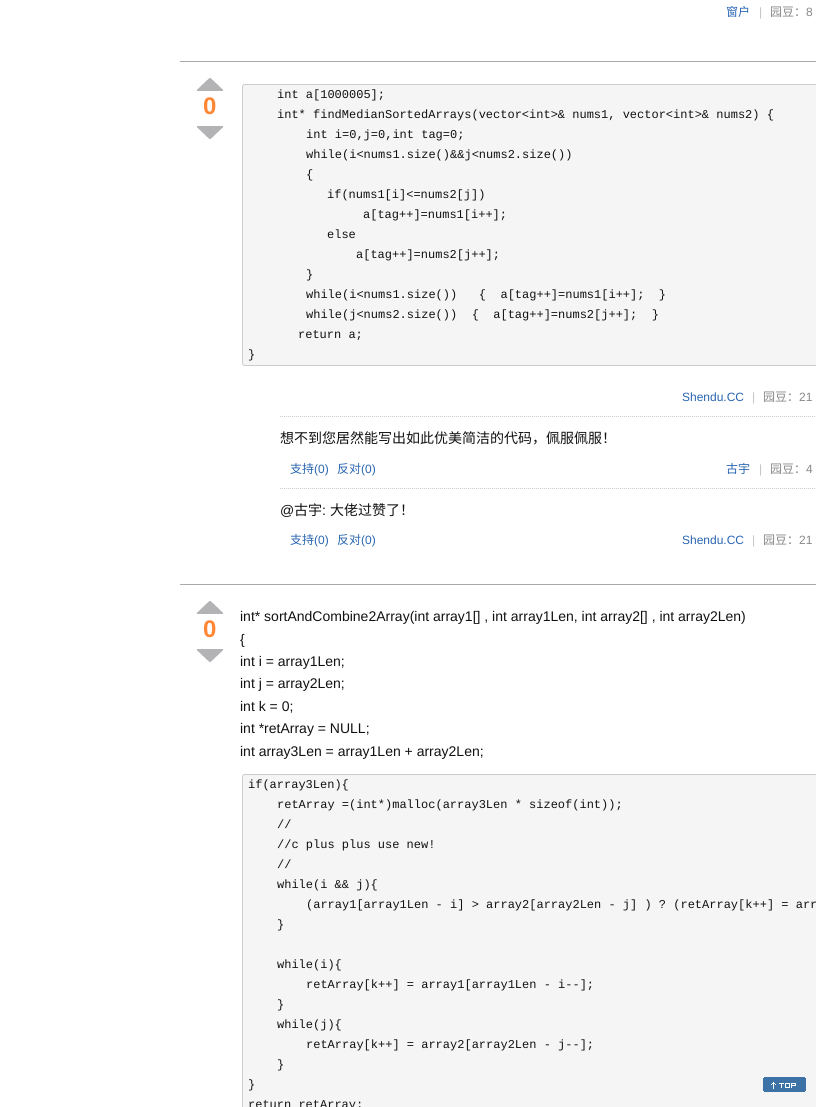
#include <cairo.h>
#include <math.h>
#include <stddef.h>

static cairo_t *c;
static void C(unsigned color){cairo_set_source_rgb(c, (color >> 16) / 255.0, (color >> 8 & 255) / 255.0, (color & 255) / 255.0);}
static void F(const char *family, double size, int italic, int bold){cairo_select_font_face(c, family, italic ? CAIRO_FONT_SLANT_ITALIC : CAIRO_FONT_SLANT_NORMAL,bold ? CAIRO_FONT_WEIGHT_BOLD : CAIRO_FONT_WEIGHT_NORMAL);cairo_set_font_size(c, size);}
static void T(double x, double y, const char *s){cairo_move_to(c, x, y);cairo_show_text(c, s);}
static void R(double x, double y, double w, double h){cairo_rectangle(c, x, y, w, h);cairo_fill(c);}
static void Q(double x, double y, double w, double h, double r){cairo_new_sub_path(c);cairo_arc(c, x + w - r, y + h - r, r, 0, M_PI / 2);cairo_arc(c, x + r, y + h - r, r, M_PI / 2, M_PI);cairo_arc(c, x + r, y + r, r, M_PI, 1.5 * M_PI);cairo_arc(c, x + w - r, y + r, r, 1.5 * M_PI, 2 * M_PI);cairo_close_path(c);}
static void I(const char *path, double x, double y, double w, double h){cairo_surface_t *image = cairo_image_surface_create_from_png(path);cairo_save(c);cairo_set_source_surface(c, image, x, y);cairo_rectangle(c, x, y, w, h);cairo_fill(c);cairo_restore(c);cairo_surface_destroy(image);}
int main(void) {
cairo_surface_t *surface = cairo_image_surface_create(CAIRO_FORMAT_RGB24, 816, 1107);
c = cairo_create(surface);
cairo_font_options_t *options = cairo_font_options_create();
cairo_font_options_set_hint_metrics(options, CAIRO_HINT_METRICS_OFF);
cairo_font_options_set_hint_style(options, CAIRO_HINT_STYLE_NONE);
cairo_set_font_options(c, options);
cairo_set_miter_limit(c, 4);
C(0xffffff);
cairo_paint(c);
C(0xaaaaaa);
R(180,61,636,1);
F("Noto Sans CJK SC",12,0,0);
C(0x2965b1);
T(726,16,"窗户");
F("Liberation Sans",12,0,0);
C(0xc1c1c1);
T(759,16,"|");
F("Noto Sans CJK SC",12,0,0);
C(0x888888);
T(770,16,"园豆：");
F("Liberation Sans",12,0,0);
T(806,16,"8");
C(0xaaaaaa);
R(180,584,636,1);
I("1.png",197,78,26,13);
F("Liberation Sans",24,0,1);
C(0xff8635);
T(203,114,"0");
I("2.png",197,126,26,13);
C(0xf5f5f5);
Q(242.5,84.5,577,281,2.5);
cairo_fill_preserve(c);
C(0xcccccc);
cairo_set_line_width(c,1);
cairo_stroke(c);
F("Liberation Mono",12,0,0);
C(0x111111);
T(277,98,"int a[1000005];");
T(277,118,"int* findMedianSortedArrays(vector<int>& nums1, vector<int>& nums2) {");
T(306,138,"int i=0,j=0,int tag=0;");
T(306,158,"while(i<nums1.size()&&j<nums2.size())");
T(306,178,"{");
T(327,198,"if(nums1[i]<=nums2[j])");
T(363,218,"a[tag++]=nums1[i++];");
T(327,238,"else");
T(356,258,"a[tag++]=nums2[j++];");
T(306,278,"}");
T(306,298,"while(i<nums1.size())   {  a[tag++]=nums1[i++];  }");
T(306,318,"while(j<nums2.size())  {  a[tag++]=nums2[j++];  }");
T(298,338,"return a;");
T(248,358,"}");
F("Liberation Sans",12,0,0);
C(0x2965b1);
T(682,401,"Shendu.CC");
C(0xc1c1c1);
T(752,401,"|");
F("Noto Sans CJK SC",12,0,0);
C(0x888888);
T(763,401,"园豆：");
F("Liberation Sans",12,0,0);
T(799,401,"21");
cairo_new_path(c);
cairo_move_to(c,280,416.5);
cairo_line_to(c,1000,416.5);
C(0xcccccc);
cairo_set_dash(c,(double[]){1,1},2,0);
cairo_stroke(c);
F("Noto Sans CJK SC",14,0,0);
C(0x111111);
T(280,443,"想不到您居然能写出如此优美简洁的代码，佩服佩服！");
F("Noto Sans CJK SC",12,0,0);
C(0x2965b1);
T(290,473,"支持");
F("Liberation Sans",12,0,0);
T(314,473,"(0)");
F("Noto Sans CJK SC",12,0,0);
T(337,473,"反对");
F("Liberation Sans",12,0,0);
T(361,473,"(0)");
F("Noto Sans CJK SC",12,0,0);
T(726,473,"古宇");
F("Liberation Sans",12,0,0);
C(0xc1c1c1);
T(759,473,"|");
F("Noto Sans CJK SC",12,0,0);
C(0x888888);
T(770,473,"园豆：");
F("Liberation Sans",12,0,0);
T(806,473,"4");
cairo_new_path(c);
cairo_move_to(c,280,488.5);
cairo_line_to(c,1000,488.5);
C(0xcccccc);
cairo_stroke(c);
F("Liberation Sans",14,0,0);
C(0x111111);
T(280,515,"@");
F("Noto Sans CJK SC",14,0,0);
T(294,515,"古宇");
F("Liberation Sans",14,0,0);
T(322,515,":");
F("Noto Sans CJK SC",14,0,0);
T(330,515,"大佬过赞了！");
F("Noto Sans CJK SC",12,0,0);
C(0x2965b1);
T(290,544,"支持");
F("Liberation Sans",12,0,0);
T(314,544,"(0)");
F("Noto Sans CJK SC",12,0,0);
T(337,544,"反对");
F("Liberation Sans",12,0,0);
T(361,544,"(0)");
T(682,544,"Shendu.CC");
C(0xc1c1c1);
T(752,544,"|");
F("Noto Sans CJK SC",12,0,0);
C(0x888888);
T(763,544,"园豆：");
F("Liberation Sans",12,0,0);
T(799,544,"21");
I("1.png",197,601,26,13);
F("Liberation Sans",24,0,1);
C(0xff8635);
T(203,637,"0");
I("2.png",197,649,26,13);
F("Liberation Sans",14,0,0);
C(0x111111);
T(240,621,"int* sortAndCombine2Array(int array1[] , int array1Len, int array2[] , int array2Len)");
T(240,644,"{");
T(240,666,"int i = array1Len;");
T(240,688,"int j = array2Len;");
T(240,711,"int k = 0;");
T(240,733,"int *retArray = NULL;");
T(240,756,"int array3Len = array1Len + array2Len;");
C(0xf5f5f5);
Q(242.5,774.5,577,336,2.5);
cairo_fill_preserve(c);
C(0xcccccc);
cairo_set_dash(c,NULL,0,0);
cairo_stroke(c);
F("Liberation Mono",12,0,0);
C(0x111111);
T(248,788,"if(array3Len){");
T(277,808,"retArray =(int*)malloc(array3Len * sizeof(int));");
T(277,828,"//");
T(277,848,"//c plus plus use new!");
T(277,868,"//");
T(277,888,"while(i && j){");
T(306,908,"(array1[array1Len - i] > array2[array2Len - j] ) ? (retArray[k++] = arr");
T(277,928,"}");
T(277,968,"while(i){");
T(306,988,"retArray[k++] = array1[array1Len - i--];");
T(277,1008,"}");
T(277,1028,"while(j){");
T(306,1048,"retArray[k++] = array2[array2Len - j--];");
T(277,1068,"}");
T(248,1088,"}");
T(248,1108,"return retArray;");
I("3.png",763,1077,43,15);
cairo_surface_write_to_png(surface, "o.png");
cairo_font_options_destroy(options);
cairo_destroy(c);
cairo_surface_destroy(surface);
return 0;
}
